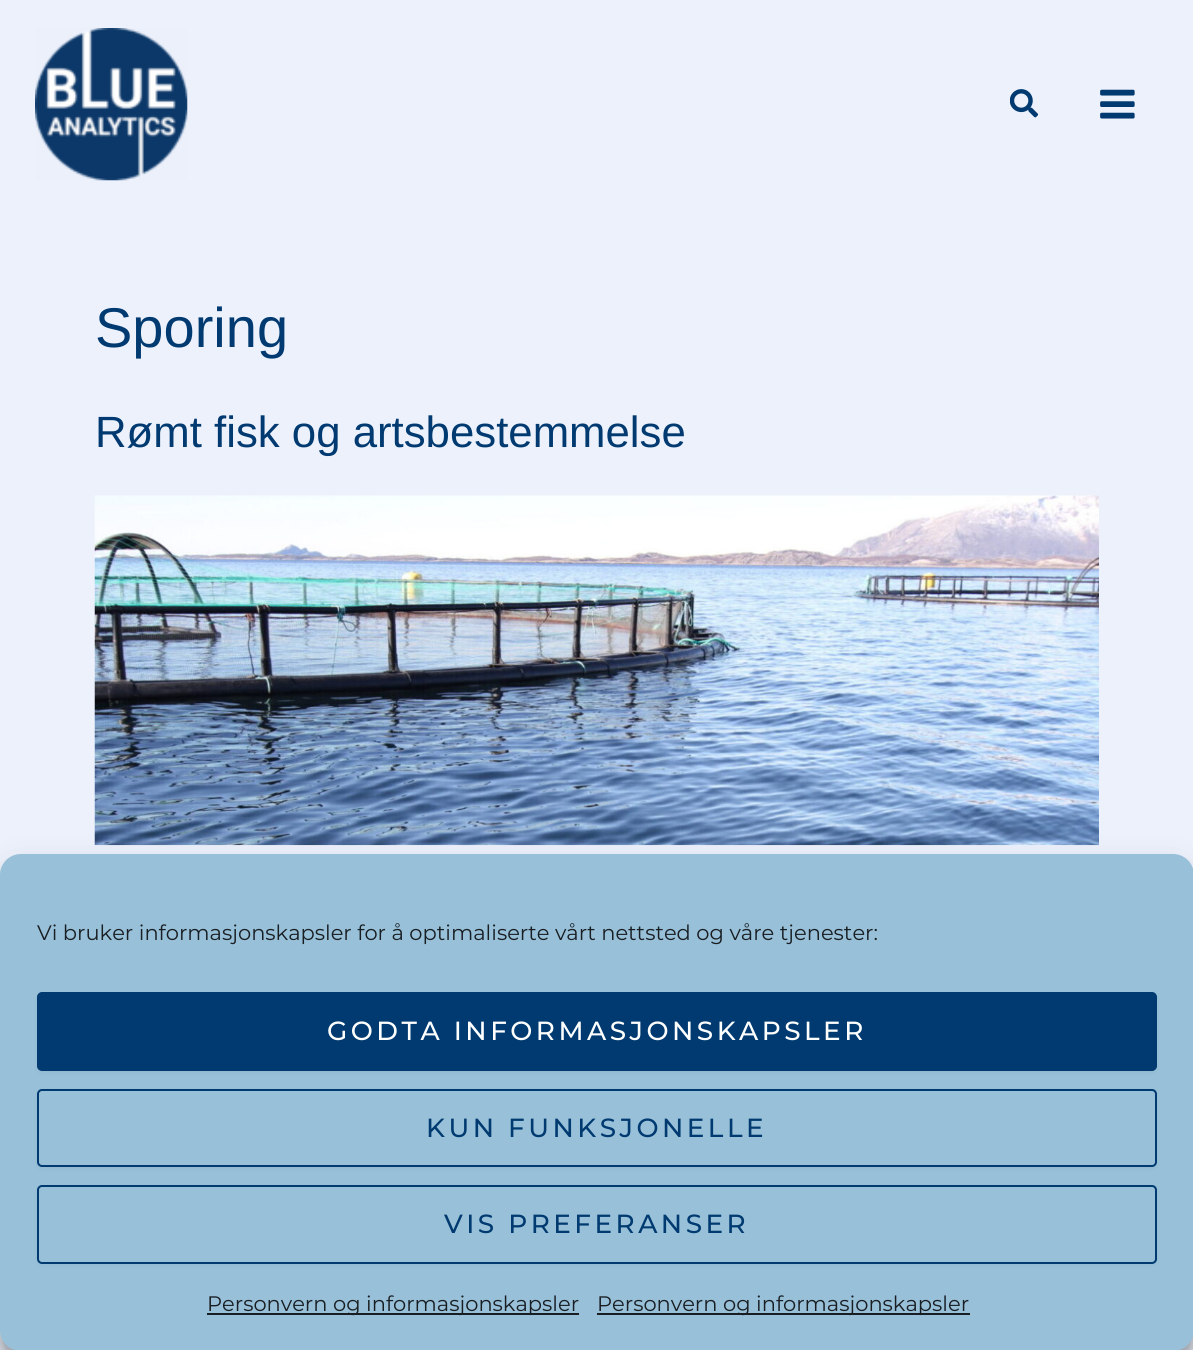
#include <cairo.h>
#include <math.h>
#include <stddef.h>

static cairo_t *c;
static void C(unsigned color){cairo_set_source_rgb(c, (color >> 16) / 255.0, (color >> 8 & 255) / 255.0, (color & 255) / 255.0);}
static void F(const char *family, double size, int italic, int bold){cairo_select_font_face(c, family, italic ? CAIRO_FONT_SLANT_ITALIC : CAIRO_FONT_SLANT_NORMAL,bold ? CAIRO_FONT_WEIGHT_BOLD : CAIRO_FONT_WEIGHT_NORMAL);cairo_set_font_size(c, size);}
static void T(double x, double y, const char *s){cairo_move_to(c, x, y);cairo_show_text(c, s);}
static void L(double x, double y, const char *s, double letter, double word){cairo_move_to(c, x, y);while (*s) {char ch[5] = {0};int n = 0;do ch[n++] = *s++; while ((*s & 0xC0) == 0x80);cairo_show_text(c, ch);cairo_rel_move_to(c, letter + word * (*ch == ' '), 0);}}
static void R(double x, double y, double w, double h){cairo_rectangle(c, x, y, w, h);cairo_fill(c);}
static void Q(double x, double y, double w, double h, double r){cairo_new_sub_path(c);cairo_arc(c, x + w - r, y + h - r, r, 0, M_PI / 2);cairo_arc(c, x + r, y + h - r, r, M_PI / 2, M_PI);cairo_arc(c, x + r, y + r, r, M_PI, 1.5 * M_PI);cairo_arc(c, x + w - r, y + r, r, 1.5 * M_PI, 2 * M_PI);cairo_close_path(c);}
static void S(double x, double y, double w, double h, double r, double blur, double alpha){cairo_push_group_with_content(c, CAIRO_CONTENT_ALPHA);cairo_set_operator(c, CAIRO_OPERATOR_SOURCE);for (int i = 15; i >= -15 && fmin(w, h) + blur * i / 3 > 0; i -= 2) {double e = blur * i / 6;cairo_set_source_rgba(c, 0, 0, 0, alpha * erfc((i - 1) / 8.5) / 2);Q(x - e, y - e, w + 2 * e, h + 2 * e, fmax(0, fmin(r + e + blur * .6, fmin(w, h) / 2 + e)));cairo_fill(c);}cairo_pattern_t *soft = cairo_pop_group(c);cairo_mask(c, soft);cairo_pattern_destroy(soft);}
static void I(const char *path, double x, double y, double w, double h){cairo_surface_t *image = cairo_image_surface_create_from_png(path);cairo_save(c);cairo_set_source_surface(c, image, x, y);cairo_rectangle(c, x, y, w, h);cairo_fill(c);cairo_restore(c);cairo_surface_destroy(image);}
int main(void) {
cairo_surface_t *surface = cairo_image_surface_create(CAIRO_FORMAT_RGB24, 1193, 1350);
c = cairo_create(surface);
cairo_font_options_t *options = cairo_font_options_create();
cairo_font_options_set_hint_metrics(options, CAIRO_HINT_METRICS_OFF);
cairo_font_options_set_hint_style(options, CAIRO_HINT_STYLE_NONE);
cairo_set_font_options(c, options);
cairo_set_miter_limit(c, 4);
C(0xecf1fc);
cairo_paint(c);
I("1.png",35,28,153,153);
I("2.png",1010,89,28,29);
I("3.png",1100,89,35,30);
F("Liberation Sans",56,0,0);
C(0x003a70);
T(95,347,"Sporing");
F("Liberation Sans",43.75,0,0);
T(95,447,"Rømt fisk og artsbestemmelse");
I("4.png",94,495,1005,351);
C(0x000000);
S(0,865,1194,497,21,5,.23);
S(0,872,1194,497,21,17.5,.19);
C(0x98c1d9);
Q(1,855,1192,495,20);
cairo_fill_preserve(c);
cairo_stroke(c);
F("Montserrat",21,0,0);
C(0x191e23);
T(37,940,"Vi bruker informasjonskapsler for å optimaliserte vårt nettsted og våre tjenester:");
C(0x000000);
S(37,994,1120,79,5,2,.05);
C(0x003a70);
Q(38,993,1118,77,4);
cairo_fill_preserve(c);
cairo_stroke(c);
F("Montserrat Medium",26.25,0,0);
C(0xffffff);
L(327,1040,"GODTA INFORMASJONSKAPSLER",3.5,0);
C(0x000000);
S(37,1090,1120,79,5,2,.05);
C(0x98c1d9);
Q(38,1090,1118,76,4);
cairo_fill_preserve(c);
C(0x003a70);
cairo_stroke(c);
L(426,1137,"KUN FUNKSJONELLE",3.5,0);
C(0x000000);
S(37,1187,1120,78,5,2,.05);
C(0x98c1d9);
Q(38,1186,1118,77,4);
cairo_fill_preserve(c);
C(0x003a70);
cairo_stroke(c);
L(444,1233,"VIS PREFERANSER",3.5,0);
C(0x191e23);
R(207,1313,372,2);
F("Montserrat",21,0,0);
T(207,1311,"Personvern og informasjonskapsler");
R(597,1313,373,2);
T(597,1311,"Personvern og informasjonskapsler");
cairo_surface_write_to_png(surface, "o.png");
cairo_font_options_destroy(options);
cairo_destroy(c);
cairo_surface_destroy(surface);
return 0;
}
